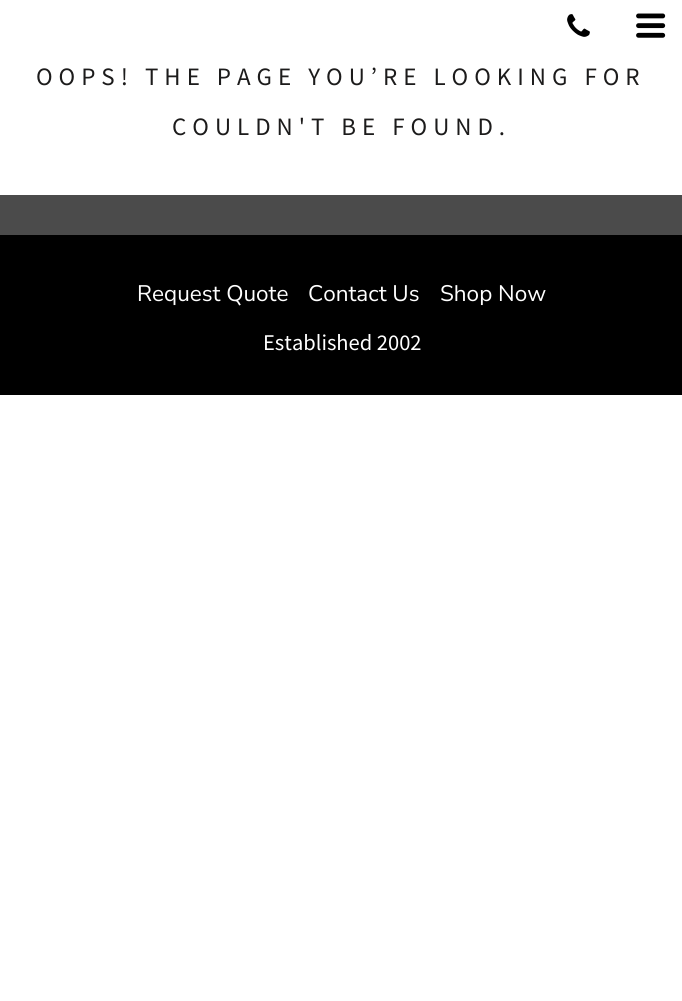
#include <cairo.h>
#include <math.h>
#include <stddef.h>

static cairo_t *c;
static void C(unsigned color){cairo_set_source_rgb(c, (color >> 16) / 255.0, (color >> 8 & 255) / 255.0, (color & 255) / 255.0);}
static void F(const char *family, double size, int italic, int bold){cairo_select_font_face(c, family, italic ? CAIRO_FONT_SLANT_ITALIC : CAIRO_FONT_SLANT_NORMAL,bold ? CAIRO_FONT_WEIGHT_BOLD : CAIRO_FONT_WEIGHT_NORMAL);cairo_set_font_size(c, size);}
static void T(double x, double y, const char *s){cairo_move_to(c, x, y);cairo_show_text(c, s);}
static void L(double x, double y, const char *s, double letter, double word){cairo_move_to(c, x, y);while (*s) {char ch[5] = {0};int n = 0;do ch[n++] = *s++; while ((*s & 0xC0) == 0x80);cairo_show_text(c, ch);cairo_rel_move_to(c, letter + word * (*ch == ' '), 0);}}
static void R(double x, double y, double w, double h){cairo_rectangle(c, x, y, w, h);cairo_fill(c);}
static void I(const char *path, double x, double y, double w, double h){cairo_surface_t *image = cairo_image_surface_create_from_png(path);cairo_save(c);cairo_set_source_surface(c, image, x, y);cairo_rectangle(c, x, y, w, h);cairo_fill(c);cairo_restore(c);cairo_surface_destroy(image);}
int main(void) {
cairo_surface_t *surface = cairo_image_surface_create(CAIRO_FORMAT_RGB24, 682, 1001);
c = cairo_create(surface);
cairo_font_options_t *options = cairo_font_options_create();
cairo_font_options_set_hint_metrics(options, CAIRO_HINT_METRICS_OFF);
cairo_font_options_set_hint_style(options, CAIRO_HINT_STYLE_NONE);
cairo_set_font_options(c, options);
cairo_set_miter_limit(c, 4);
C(0xffffff);
cairo_paint(c);
F("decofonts",29,0,0);
C(0x000000);
T(564,41,";");
I("1.png",636,13,30,25);
F("Source Sans Pro",25,0,0);
C(0x1c1b1b);
L(36,85,"OOPS! THE PAGE YOU’RE LOOKING FOR",6,0);
L(172,135,"COULDN'T BE FOUND.",6,0);
C(0x4b4b4b);
R(0,195,682,40);
C(0x000000);
R(0,235,682,160);
F("Nunito Sans ExtraLight",22.5,0,0);
C(0xffffff);
T(137,301,"Request Quote");
T(308,301,"Contact Us");
T(440,301,"Shop Now");
F("Source Sans Pro",22.5,0,0);
T(263,350,"Established 2002");
cairo_surface_write_to_png(surface, "o.png");
cairo_font_options_destroy(options);
cairo_destroy(c);
cairo_surface_destroy(surface);
return 0;
}
